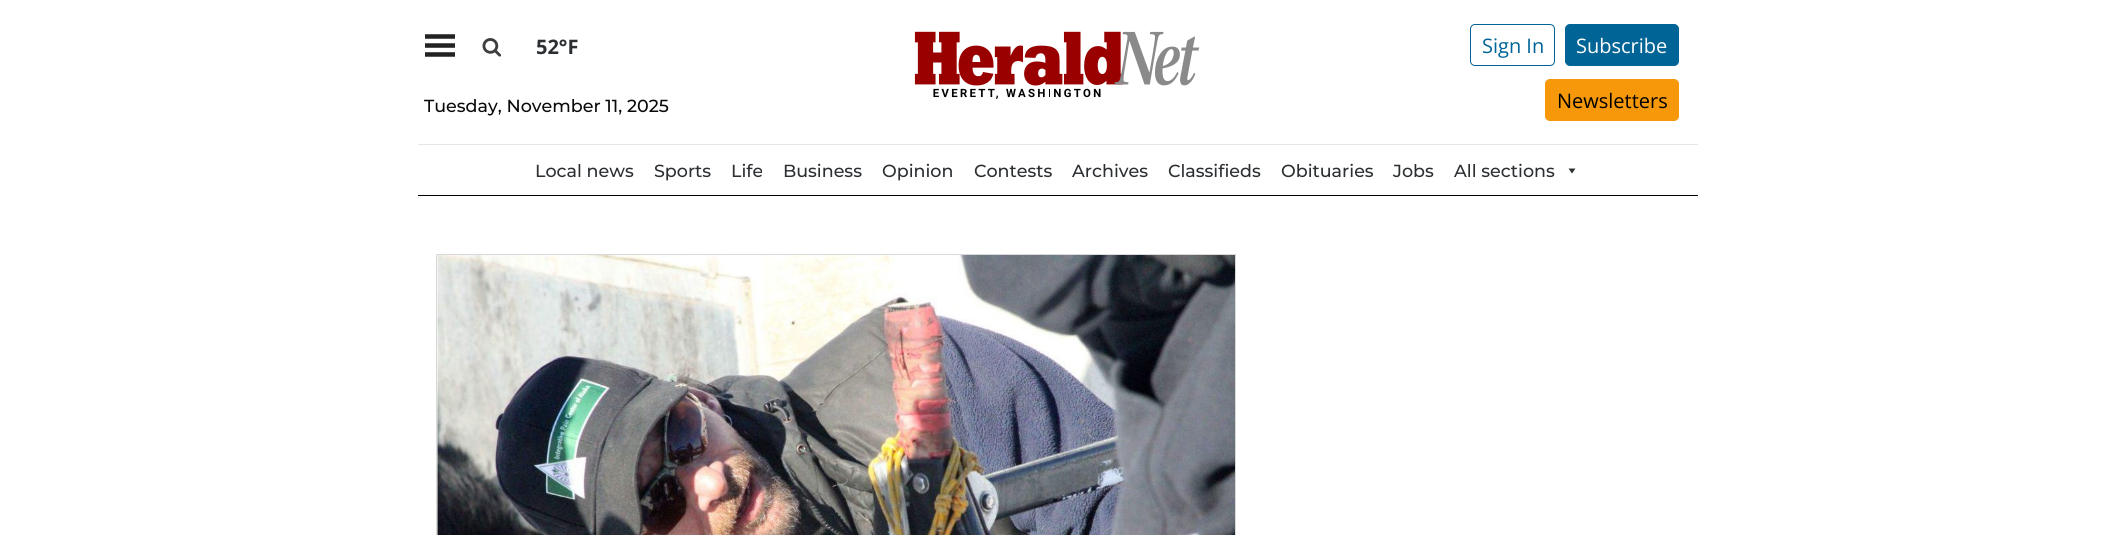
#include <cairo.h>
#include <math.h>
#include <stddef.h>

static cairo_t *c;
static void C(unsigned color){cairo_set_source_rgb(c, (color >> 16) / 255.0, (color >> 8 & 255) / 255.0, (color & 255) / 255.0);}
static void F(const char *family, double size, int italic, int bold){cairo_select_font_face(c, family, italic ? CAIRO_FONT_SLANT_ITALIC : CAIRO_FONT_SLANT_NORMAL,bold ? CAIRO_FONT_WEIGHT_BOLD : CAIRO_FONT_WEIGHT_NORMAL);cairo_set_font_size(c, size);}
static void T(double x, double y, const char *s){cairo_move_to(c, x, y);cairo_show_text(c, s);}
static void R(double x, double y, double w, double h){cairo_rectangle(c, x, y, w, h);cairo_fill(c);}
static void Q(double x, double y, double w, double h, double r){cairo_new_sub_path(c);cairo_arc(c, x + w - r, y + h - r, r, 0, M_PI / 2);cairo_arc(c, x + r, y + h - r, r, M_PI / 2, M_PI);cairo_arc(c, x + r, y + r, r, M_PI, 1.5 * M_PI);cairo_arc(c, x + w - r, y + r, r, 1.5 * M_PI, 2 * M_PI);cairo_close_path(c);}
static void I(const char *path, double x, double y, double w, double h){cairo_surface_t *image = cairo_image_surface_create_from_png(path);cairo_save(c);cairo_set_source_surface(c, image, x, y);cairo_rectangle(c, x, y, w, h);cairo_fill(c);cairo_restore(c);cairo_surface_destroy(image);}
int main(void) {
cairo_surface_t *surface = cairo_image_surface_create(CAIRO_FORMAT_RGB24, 2115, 535);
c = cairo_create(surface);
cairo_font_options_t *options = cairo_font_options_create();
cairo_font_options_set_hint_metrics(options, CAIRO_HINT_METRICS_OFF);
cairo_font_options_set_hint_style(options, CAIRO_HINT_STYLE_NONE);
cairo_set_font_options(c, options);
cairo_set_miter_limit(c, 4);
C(0xffffff);
cairo_paint(c);
C(0x000000);
R(418,195,1280,1);
I("1.png",425,34,30,23);
I("2.png",482,38,20,19);
F("Open Sans",20,0,1);
C(0x2b2f31);
T(536,54,"52°F");
F("Montserrat Medium",17.5,0,0);
C(0x0a0a0a);
T(424,112,"Tuesday, November 11, 2025");
I("3.png",914,31,286,68);
Q(1470.5,24.5,84,41,4.5);
C(0x016496);
cairo_set_line_width(c,1);
cairo_stroke(c);
F("Open Sans",20,0,0);
T(1482,53,"Sign In");
Q(1565.5,24.5,113,41,4.5);
cairo_fill_preserve(c);
cairo_stroke(c);
C(0xffffff);
T(1576,53,"Subscribe");
C(0xf6980a);
Q(1545.5,79.5,133,41,4.5);
cairo_fill_preserve(c);
cairo_stroke(c);
C(0x000000);
T(1557,108,"Newsletters");
C(0xe6e6e6);
R(418,144,1280,1);
F("Montserrat Medium",17.5,0,0);
C(0x2b2f31);
T(535,177,"Local news");
T(654,177,"Sports");
T(731,177,"Life");
T(783,177,"Business");
T(882,177,"Opinion");
T(974,177,"Contests");
T(1072,177,"Archives");
T(1168,177,"Classifieds");
T(1281,177,"Obituaries");
T(1393,177,"Jobs");
T(1454,177,"All sections");
cairo_new_path(c);
cairo_move_to(c,1575.5,168.5);
cairo_line_to(c,1572,173.5);
cairo_line_to(c,1568.5,168.5);
cairo_close_path(c);
cairo_fill(c);
cairo_rectangle(c,436.5,254.5,799,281);
C(0xd9d9d9);
cairo_stroke(c);
I("4.png",437,255,798,280);
cairo_surface_write_to_png(surface, "o.png");
cairo_font_options_destroy(options);
cairo_destroy(c);
cairo_surface_destroy(surface);
return 0;
}
